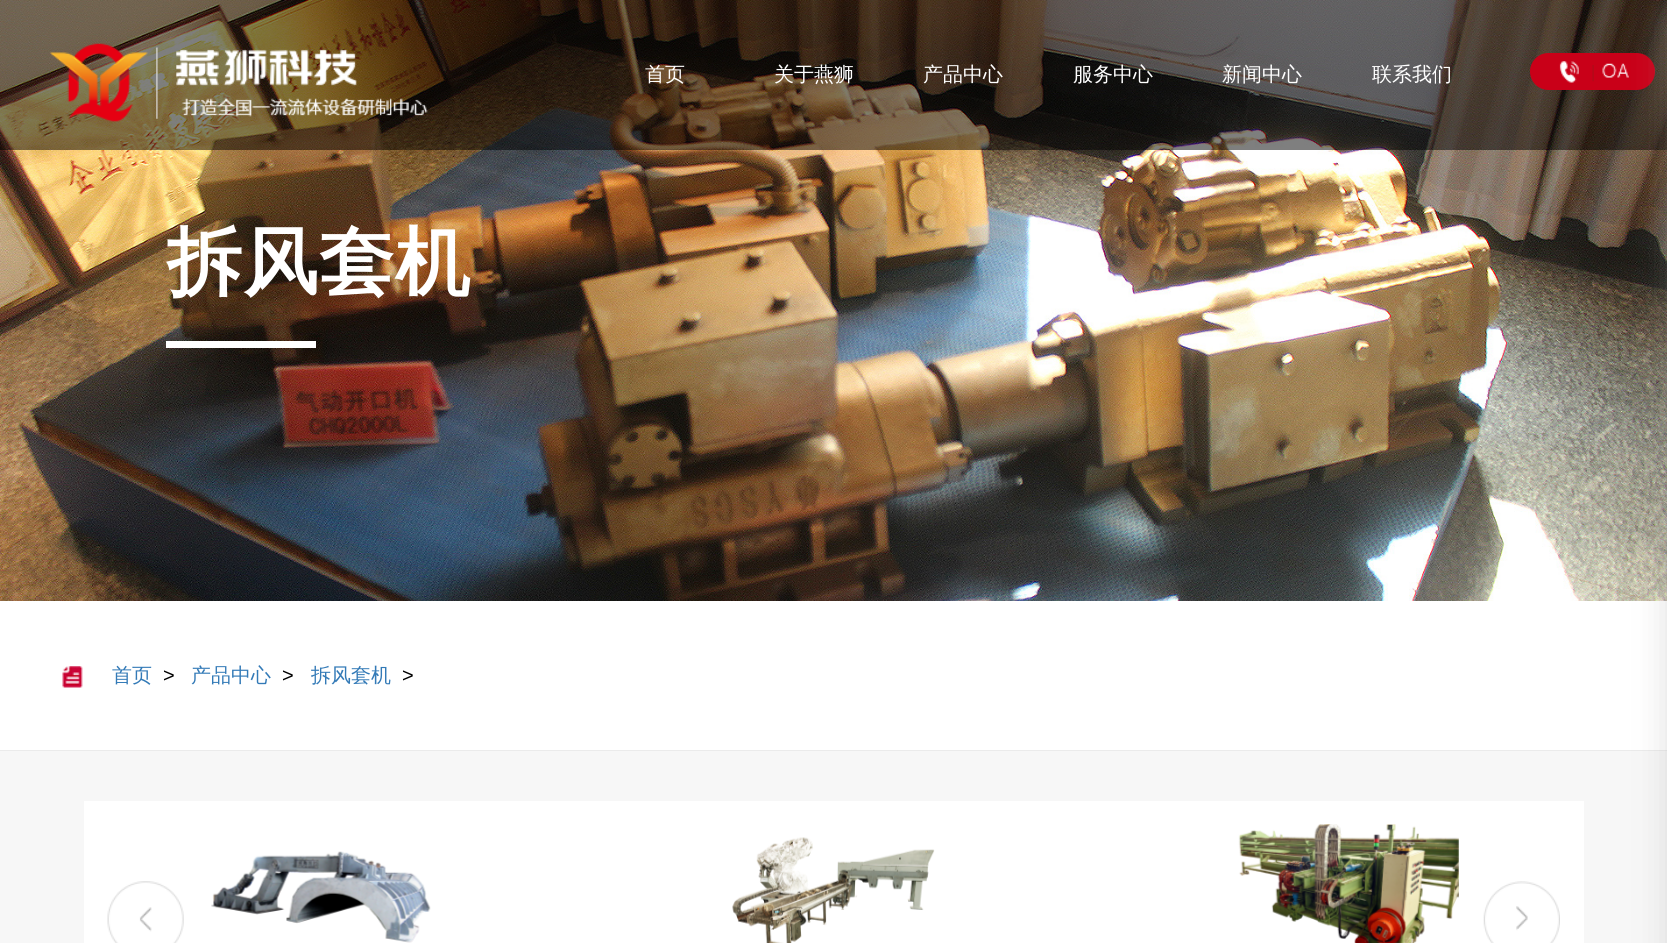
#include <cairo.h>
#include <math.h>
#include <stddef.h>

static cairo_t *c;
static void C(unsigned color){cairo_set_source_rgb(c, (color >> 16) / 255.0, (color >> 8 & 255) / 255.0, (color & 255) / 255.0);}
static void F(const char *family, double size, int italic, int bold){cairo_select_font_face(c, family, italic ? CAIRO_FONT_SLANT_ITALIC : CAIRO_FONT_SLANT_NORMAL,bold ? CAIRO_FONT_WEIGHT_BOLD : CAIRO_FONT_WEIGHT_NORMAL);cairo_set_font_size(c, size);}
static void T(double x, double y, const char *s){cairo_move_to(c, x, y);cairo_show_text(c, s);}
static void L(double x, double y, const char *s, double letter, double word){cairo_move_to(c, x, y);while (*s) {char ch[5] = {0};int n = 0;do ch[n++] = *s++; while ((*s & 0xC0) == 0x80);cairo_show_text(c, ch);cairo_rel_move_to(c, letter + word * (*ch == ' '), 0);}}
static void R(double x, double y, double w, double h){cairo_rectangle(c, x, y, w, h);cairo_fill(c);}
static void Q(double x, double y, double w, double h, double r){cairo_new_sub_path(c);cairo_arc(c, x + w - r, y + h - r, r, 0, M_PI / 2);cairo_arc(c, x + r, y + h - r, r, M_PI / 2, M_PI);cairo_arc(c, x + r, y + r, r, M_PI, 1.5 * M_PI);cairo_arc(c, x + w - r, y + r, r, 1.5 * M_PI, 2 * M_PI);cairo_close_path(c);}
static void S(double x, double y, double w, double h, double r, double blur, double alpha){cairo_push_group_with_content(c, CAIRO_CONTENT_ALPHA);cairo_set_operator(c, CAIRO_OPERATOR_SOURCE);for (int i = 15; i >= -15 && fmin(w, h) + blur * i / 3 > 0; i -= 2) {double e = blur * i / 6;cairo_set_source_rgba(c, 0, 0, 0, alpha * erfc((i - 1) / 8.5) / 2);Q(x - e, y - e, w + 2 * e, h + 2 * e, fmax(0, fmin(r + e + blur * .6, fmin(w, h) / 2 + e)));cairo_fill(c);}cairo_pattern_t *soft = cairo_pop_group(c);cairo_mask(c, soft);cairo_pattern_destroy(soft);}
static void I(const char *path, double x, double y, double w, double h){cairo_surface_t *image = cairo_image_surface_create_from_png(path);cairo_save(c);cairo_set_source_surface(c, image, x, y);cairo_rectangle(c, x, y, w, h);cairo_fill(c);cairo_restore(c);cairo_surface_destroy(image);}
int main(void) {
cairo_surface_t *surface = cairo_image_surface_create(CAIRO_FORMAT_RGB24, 1667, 943);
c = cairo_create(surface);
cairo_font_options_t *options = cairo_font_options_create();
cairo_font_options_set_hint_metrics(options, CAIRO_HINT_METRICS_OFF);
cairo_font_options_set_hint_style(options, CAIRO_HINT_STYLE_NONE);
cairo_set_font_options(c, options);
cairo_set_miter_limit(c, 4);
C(0xf7f7f7);
cairo_paint(c);
I("5.png",0,0,1667,601);
cairo_set_source_rgba(c,0,0,0,0.5);
R(0,0,1667,150);
I("1.png",50,43,378,79);
F("WenQuanYi Zen Hei Medium",20,0,0);
C(0xffffff);
T(645,81,"首页");
T(774,81,"关于燕狮");
T(923,81,"产品中心");
T(1073,81,"服务中心");
T(1222,81,"新闻中心");
T(1372,81,"联系我们");
C(0xc90018);
Q(1530,53,125,37,18.5);
cairo_fill(c);
I("2.png",1559,61,20,22);
I("3.png",1592,65,2,17);
I("4.png",1602,63,27,15);
C(0xffffff);
R(0,601,1667,149);
C(0xebebeb);
R(0,750,1667,1);
C(0xa7a5a5);
S(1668,19,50,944,0,17,.38);
F("WenQuanYi Zen Hei",75,0,1);
C(0xffffff);
L(167,288,"拆风套机",1,0);
R(166,341,150,7);
I("6.png",62,666,21,22);
F("WenQuanYi Zen Hei Medium",20,0,0);
C(0x337ab7);
T(112,682,"首页");
F("Liberation Sans",20,0,0);
C(0x000000);
T(163,682,">");
F("WenQuanYi Zen Hei Medium",20,0,0);
C(0x337ab7);
T(191,682,"产品中心");
F("Liberation Sans",20,0,0);
C(0x000000);
T(282,682,">");
F("WenQuanYi Zen Hei Medium",20,0,0);
C(0x337ab7);
T(311,682,"拆风套机");
F("Liberation Sans",20,0,0);
C(0x000000);
T(402,682,">");
C(0xffffff);
R(84,801,1500,142);
I("7.png",107,881,77,62);
I("8.png",211,851,220,92);
I("9.png",732,837,203,106);
I("10.png",1238,824,221,119);
I("11.png",1483,881,77,62);
cairo_surface_write_to_png(surface, "o.png");
cairo_font_options_destroy(options);
cairo_destroy(c);
cairo_surface_destroy(surface);
return 0;
}
